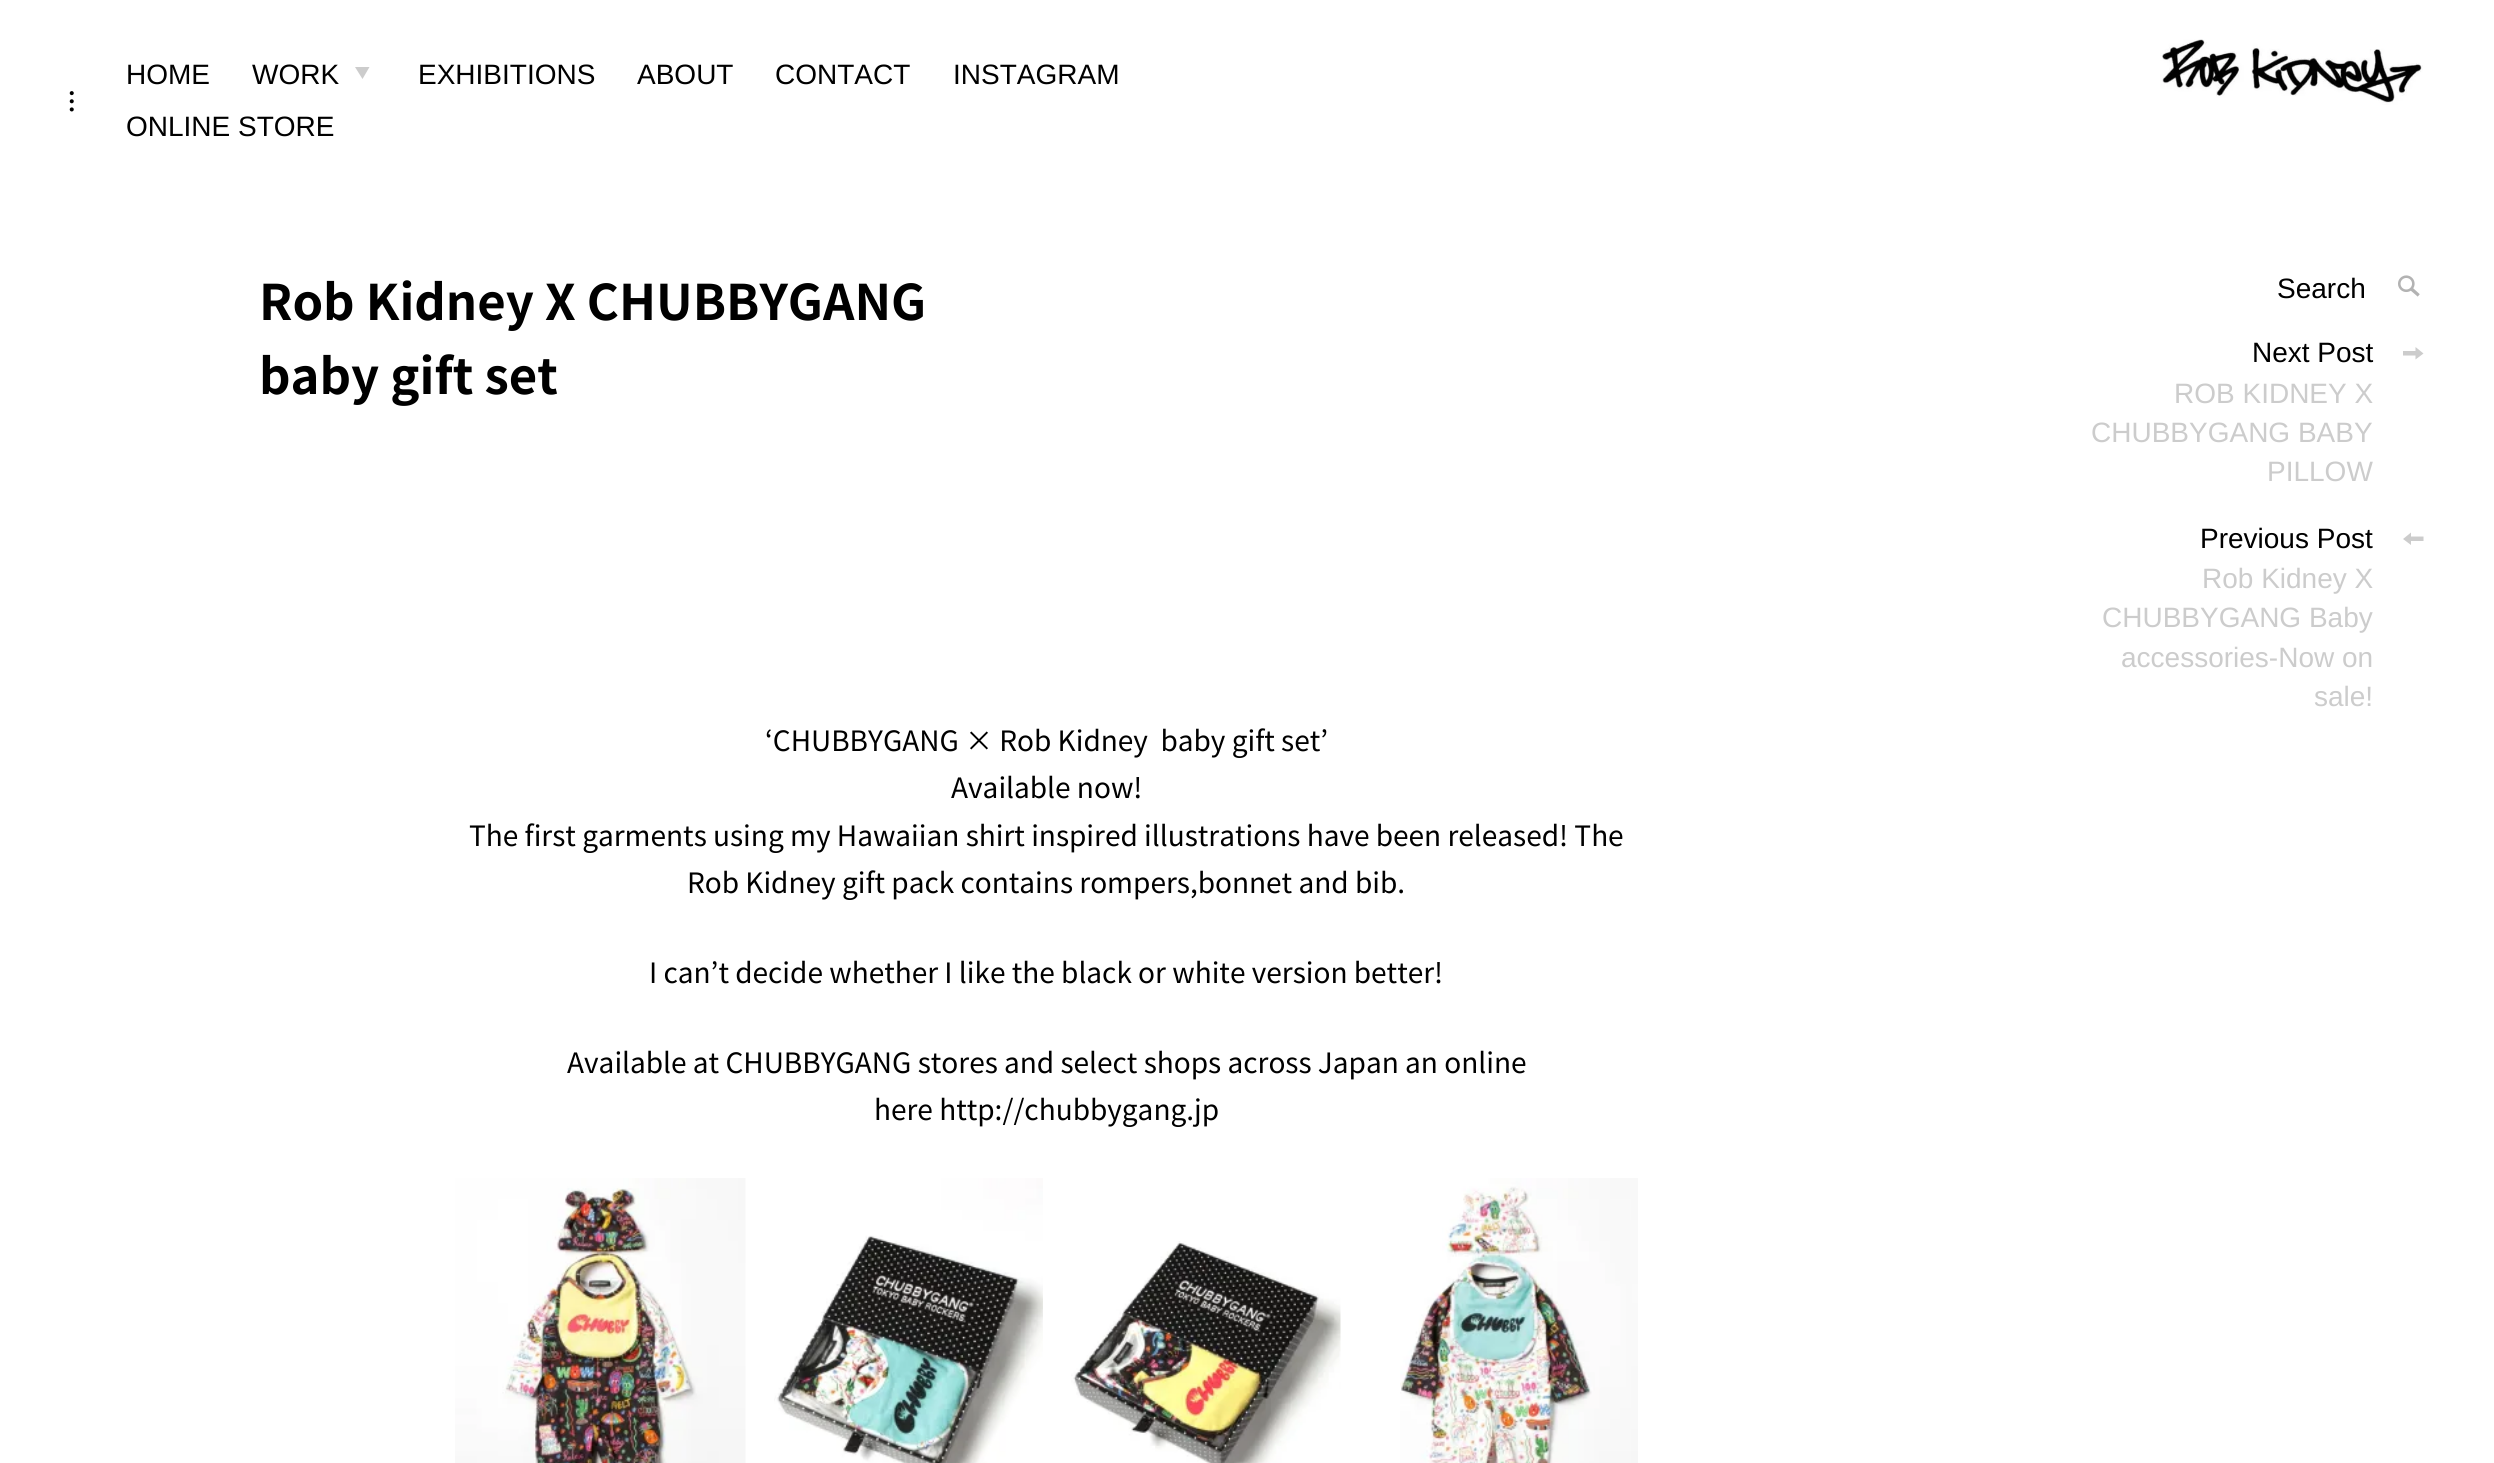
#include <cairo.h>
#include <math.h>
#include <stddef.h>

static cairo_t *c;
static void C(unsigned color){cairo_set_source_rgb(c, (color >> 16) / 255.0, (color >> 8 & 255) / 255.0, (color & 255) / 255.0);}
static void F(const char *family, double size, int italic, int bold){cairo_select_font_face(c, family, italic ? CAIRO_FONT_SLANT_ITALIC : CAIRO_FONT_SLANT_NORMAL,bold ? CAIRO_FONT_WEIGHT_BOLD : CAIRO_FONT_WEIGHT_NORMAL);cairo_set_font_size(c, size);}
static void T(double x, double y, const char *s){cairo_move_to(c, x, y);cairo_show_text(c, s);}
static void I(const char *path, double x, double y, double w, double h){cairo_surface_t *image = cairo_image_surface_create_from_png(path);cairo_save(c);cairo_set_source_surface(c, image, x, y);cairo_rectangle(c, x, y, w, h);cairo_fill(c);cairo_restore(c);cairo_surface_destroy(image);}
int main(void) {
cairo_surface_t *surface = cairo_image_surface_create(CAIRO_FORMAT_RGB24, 2494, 1463);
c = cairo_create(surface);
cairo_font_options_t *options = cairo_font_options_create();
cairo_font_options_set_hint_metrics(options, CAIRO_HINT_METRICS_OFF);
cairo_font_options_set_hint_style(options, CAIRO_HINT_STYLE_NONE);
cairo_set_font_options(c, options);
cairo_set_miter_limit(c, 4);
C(0xffffff);
cairo_paint(c);
I("1.png",69,91,5,21);
F("Liberation Sans",28,0,0);
C(0x000000);
T(126,84,"HOME");
T(252,84,"WORK");
C(0xcccccc);
cairo_new_path(c);
cairo_move_to(c,369.5,67);
cairo_line_to(c,362.5,79);
cairo_line_to(c,355,67);
cairo_close_path(c);
cairo_fill(c);
C(0x000000);
T(418,84,"EXHIBITIONS");
T(637,84,"ABOUT");
T(775,84,"CONTACT");
T(953,84,"INSTAGRAM");
T(126,136,"ONLINE STORE");
I("2.png",2160,39,263,66);
F("Noto Sans JP",49,0,1);
T(259,320,"Rob Kidney X CHUBBYGANG");
T(259,394,"baby gift set");
F("Noto Sans JP",28,0,0);
T(765,751,"‘CHUBBYGANG × Rob Kidney  baby gift set’");
T(951,798,"Available now!");
T(469,846,"The first garments using my Hawaiian shirt inspired illustrations have been released! The");
T(687,893,"Rob Kidney gift pack contains rompers,bonnet and bib.");
T(649,983,"I can’t decide whether I like the black or white version better!");
T(567,1073,"Available at CHUBBYGANG stores and select shops across Japan an online");
T(874,1120,"here http://chubbygang.jp");
I("3.png",455,1178,291,285);
I("4.png",774,1178,269,285);
I("5.png",1071,1241,270,222);
I("6.png",1400,1178,238,285);
F("Liberation Sans",28,0,0);
T(2277,298,"Search");
I("7.png",2398,275,22,22);
T(2252,362,"Next Post");
C(0xcccccc);
cairo_new_path(c);
cairo_move_to(c,2423.5,353.5);
cairo_line_to(c,2415.5,347);
cairo_line_to(c,2415.5,351);
cairo_line_to(c,2403,351);
cairo_line_to(c,2403,355.5);
cairo_line_to(c,2415.5,355.5);
cairo_line_to(c,2415.5,359.5);
cairo_close_path(c);
cairo_fill(c);
T(2174,403,"ROB KIDNEY X");
T(2091,442,"CHUBBYGANG BABY");
T(2267,481,"PILLOW");
C(0x000000);
T(2200,548,"Previous Post");
C(0xcccccc);
cairo_new_path(c);
cairo_move_to(c,2403,539);
cairo_line_to(c,2411,532.5);
cairo_line_to(c,2411,536.5);
cairo_line_to(c,2423.5,536.5);
cairo_line_to(c,2423.5,541);
cairo_line_to(c,2411,541);
cairo_line_to(c,2411,545);
cairo_close_path(c);
cairo_fill(c);
T(2202,588,"Rob Kidney X");
T(2102,627,"CHUBBYGANG Baby");
T(2121,667,"accessories-Now on");
T(2314,706,"sale!");
cairo_surface_write_to_png(surface, "o.png");
cairo_font_options_destroy(options);
cairo_destroy(c);
cairo_surface_destroy(surface);
return 0;
}
